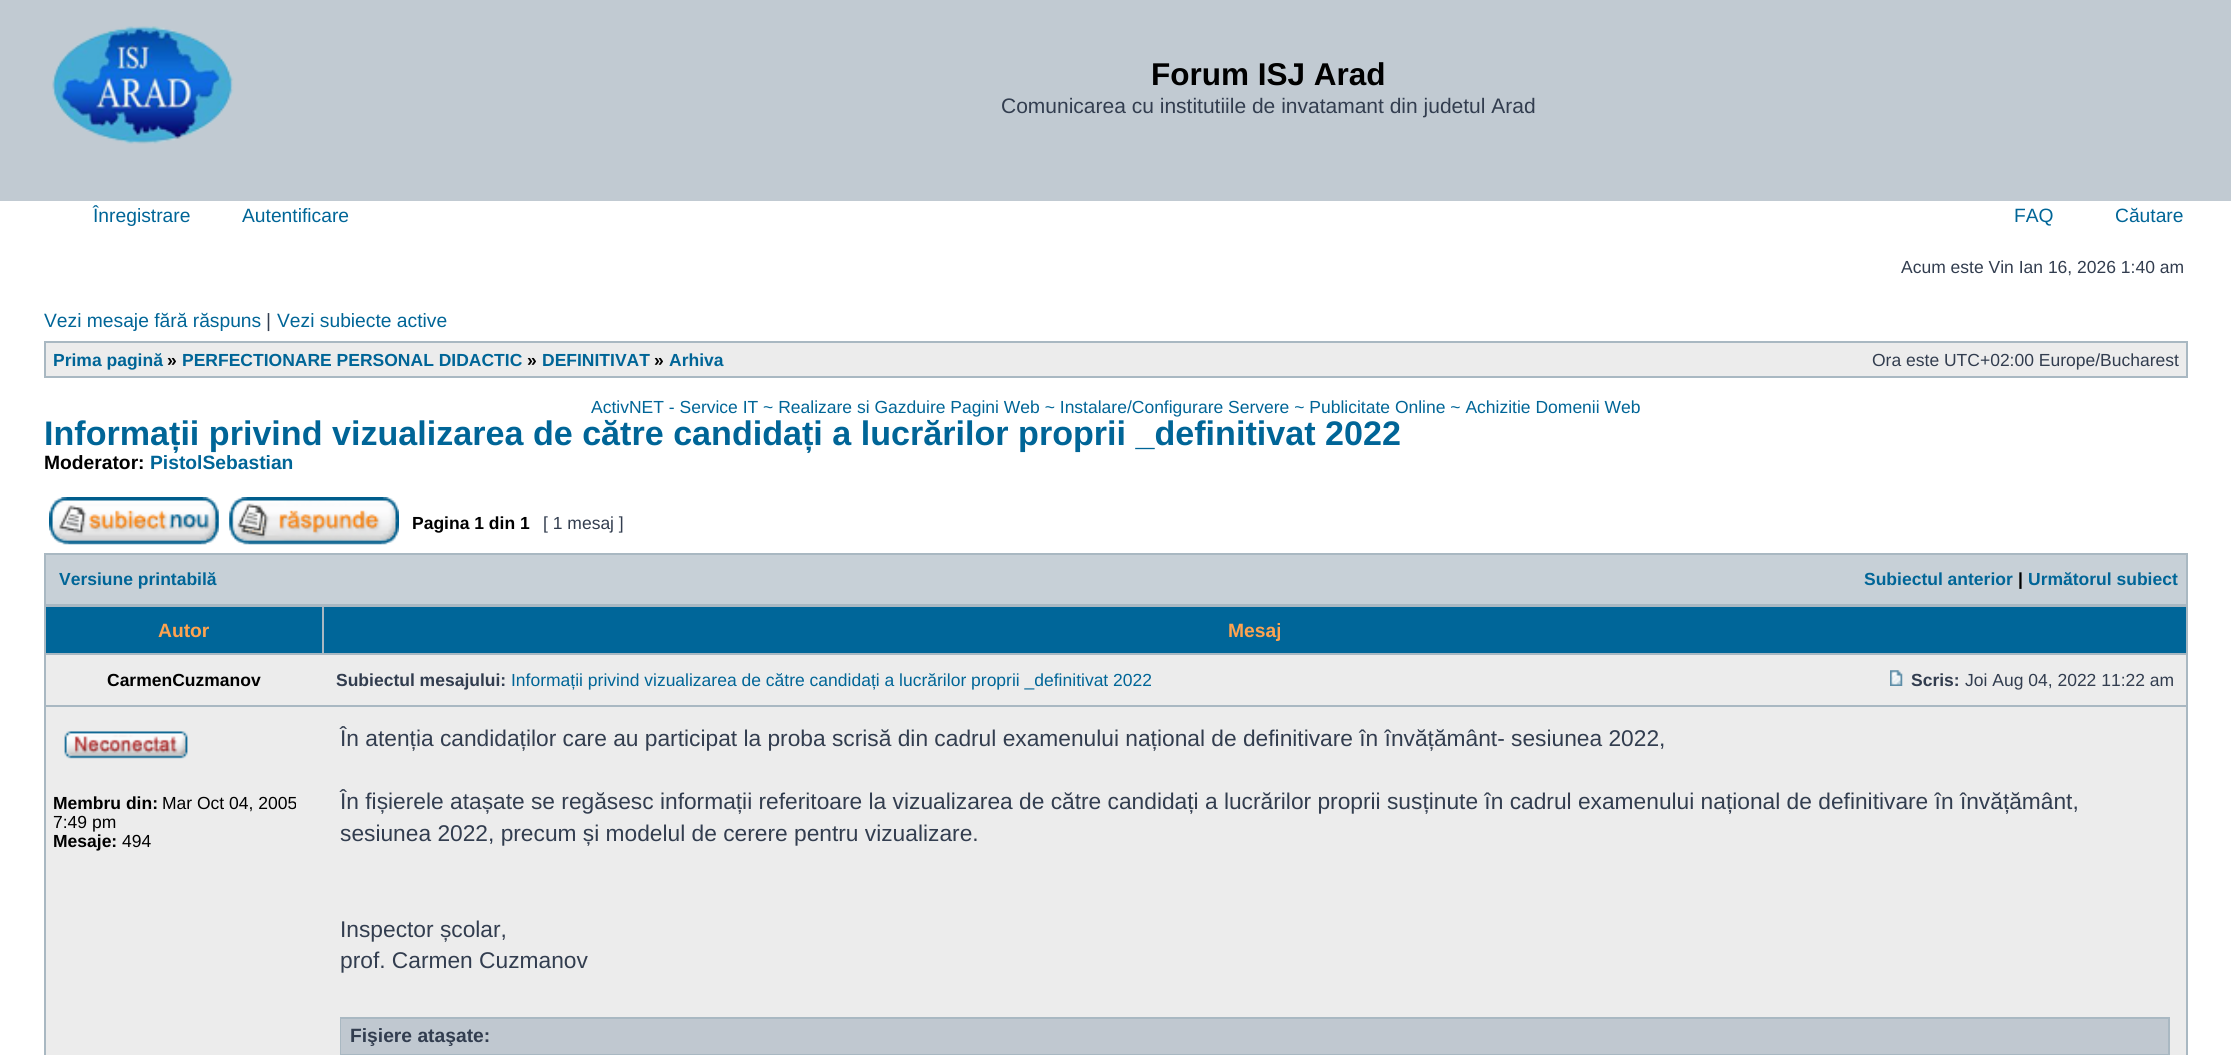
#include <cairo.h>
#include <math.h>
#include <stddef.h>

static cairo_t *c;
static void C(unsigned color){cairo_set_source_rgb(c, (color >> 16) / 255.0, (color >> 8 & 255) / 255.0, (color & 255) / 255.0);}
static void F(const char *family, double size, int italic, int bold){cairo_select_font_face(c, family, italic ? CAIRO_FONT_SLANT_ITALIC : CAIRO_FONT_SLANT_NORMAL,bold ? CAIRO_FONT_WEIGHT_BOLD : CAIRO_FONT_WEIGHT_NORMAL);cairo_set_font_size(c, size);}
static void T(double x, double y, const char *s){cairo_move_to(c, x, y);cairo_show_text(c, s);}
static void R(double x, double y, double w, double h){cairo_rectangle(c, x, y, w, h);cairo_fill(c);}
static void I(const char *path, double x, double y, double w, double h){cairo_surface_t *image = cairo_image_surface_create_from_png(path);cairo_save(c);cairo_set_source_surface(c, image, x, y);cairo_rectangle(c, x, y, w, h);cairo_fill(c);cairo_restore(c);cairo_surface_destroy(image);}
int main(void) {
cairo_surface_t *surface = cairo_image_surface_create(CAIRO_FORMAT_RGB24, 2231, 1055);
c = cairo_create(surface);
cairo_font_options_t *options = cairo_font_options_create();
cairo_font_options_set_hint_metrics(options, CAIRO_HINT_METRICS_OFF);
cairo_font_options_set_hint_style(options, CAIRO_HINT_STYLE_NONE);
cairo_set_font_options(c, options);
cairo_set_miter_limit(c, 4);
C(0xffffff);
cairo_paint(c);
C(0xc1cad2);
R(0,0,2231,201);
I("1.png",52,26,182,118);
F("Liberation Sans",31.5,0,1);
C(0x000000);
T(1151,85,"Forum ISJ Arad");
F("Liberation Sans",21,0,0);
C(0x323d4f);
T(1001,113,"Comunicarea cu institutiile de invatamant din judetul Arad");
F("Liberation Sans",19.25,0,0);
C(0x006597);
T(93,222,"Înregistrare");
T(242,222,"Autentificare");
T(2014,222,"FAQ");
T(2115,222,"Căutare");
F("Liberation Sans",17.5,0,0);
C(0x323d4f);
T(1901,273,"Acum este Vin Ian 16, 2026 1:40 am");
F("Liberation Sans",19.25,0,0);
C(0x006597);
T(44,327,"Vezi mesaje fără răspuns");
C(0x323d4f);
T(266,327,"|");
C(0x006597);
T(277,327,"Vezi subiecte active");
C(0xa9b8c2);
R(44,341,2144,37);
C(0xececec);
R(46,343,2140,33);
F("Liberation Sans",17.5,0,1);
C(0x006597);
T(53,366,"Prima pagină");
C(0x000000);
T(167,366,"»");
C(0x006597);
T(182,366,"PERFECTIONARE PERSONAL DIDACTIC");
C(0x000000);
T(527,366,"»");
C(0x006597);
T(542,366,"DEFINITIVAT");
C(0x000000);
T(654,366,"»");
C(0x006597);
T(669,366,"Arhiva");
F("Liberation Sans",17.5,0,0);
C(0x323d4f);
T(1872,366,"Ora este UTC+02:00 Europe/Bucharest");
C(0x006597);
T(591,413,"ActivNET - Service IT ~ Realizare si Gazduire Pagini Web ~ Instalare/Configurare Servere ~ Publicitate Online ~ Achizitie Domenii Web");
F("Liberation Sans",34.1,0,1);
T(44,445,"Informații privind vizualizarea de către candidați a lucrărilor proprii _definitivat 2022");
F("Liberation Sans",19.25,0,1);
C(0x000000);
T(44,469,"Moderator:");
C(0x006597);
T(150,469,"PistolSebastian");
I("2.png",49,497,170,48);
I("3.png",229,497,170,48);
F("Liberation Sans",17.5,0,1);
C(0x000000);
T(412,529,"Pagina 1 din 1");
F("Liberation Sans",17.5,0,0);
C(0x323d4f);
T(543,529,"[ 1 mesaj ]");
C(0xa9b8c2);
R(44,553,2144,502);
C(0xc7d0d7);
R(46,555,2140,49);
F("Liberation Sans",17.5,0,1);
C(0x006597);
T(59,585,"Versiune printabilă");
T(1864,585,"Subiectul anterior");
C(0x000000);
T(2018,585,"|");
C(0x006597);
T(2028,585,"Următorul subiect");
C(0x006699);
R(46,607,276,46);
F("Liberation Sans",19.25,0,1);
C(0xffa34f);
T(158,637,"Autor");
C(0x006699);
R(324,607,1862,46);
C(0xffa34f);
T(1228,637,"Mesaj");
C(0xececec);
R(46,655,2140,50);
F("Liberation Sans",17.5,0,1);
C(0x000000);
T(107,686,"CarmenCuzmanov");
C(0x323d4f);
T(336,686,"Subiectul mesajului:");
F("Liberation Sans",17.5,0,0);
C(0x006597);
T(511,686,"Informații privind vizualizarea de către candidați a lucrărilor proprii _definitivat 2022");
I("4.png",1890,670,13,16);
F("Liberation Sans",17.5,0,1);
C(0x323d4f);
T(1911,686,"Scris:");
F("Liberation Sans",17.5,0,0);
T(1965,686,"Joi Aug 04, 2022 11:22 am");
C(0xececec);
R(46,707,2140,348);
I("5.png",64,731,124,28);
F("Liberation Sans",17.5,0,1);
C(0x000000);
T(53,809,"Membru din:");
F("Liberation Sans",17.5,0,0);
T(162,809,"Mar Oct 04, 2005");
T(53,828,"7:49 pm");
F("Liberation Sans",17.5,0,1);
T(53,847,"Mesaje:");
F("Liberation Sans",17.5,0,0);
T(122,847,"494");
F("Liberation Sans",22.75,0,0);
C(0x323d4f);
T(340,746,"În atenția candidaților care au participat la proba scrisă din cadrul examenului național de definitivare în învățământ- sesiunea 2022,");
T(340,809,"În fișierele atașate se regăsesc informații referitoare la vizualizarea de către candidați a lucrărilor proprii susținute în cadrul examenului național de definitivare în învățământ,");
T(340,841,"sesiunea 2022, precum și modelul de cerere pentru vizualizare.");
T(340,937,"Inspector școlar,");
T(340,968,"prof. Carmen Cuzmanov");
C(0xa9b8c2);
R(340,1017,1830,38);
C(0xc0c8d0);
R(341,1019,1827,35);
F("Liberation Sans",19.25,0,1);
C(0x323d4f);
T(350,1042,"Fişiere ataşate:");
cairo_surface_write_to_png(surface, "o.png");
cairo_font_options_destroy(options);
cairo_destroy(c);
cairo_surface_destroy(surface);
return 0;
}
